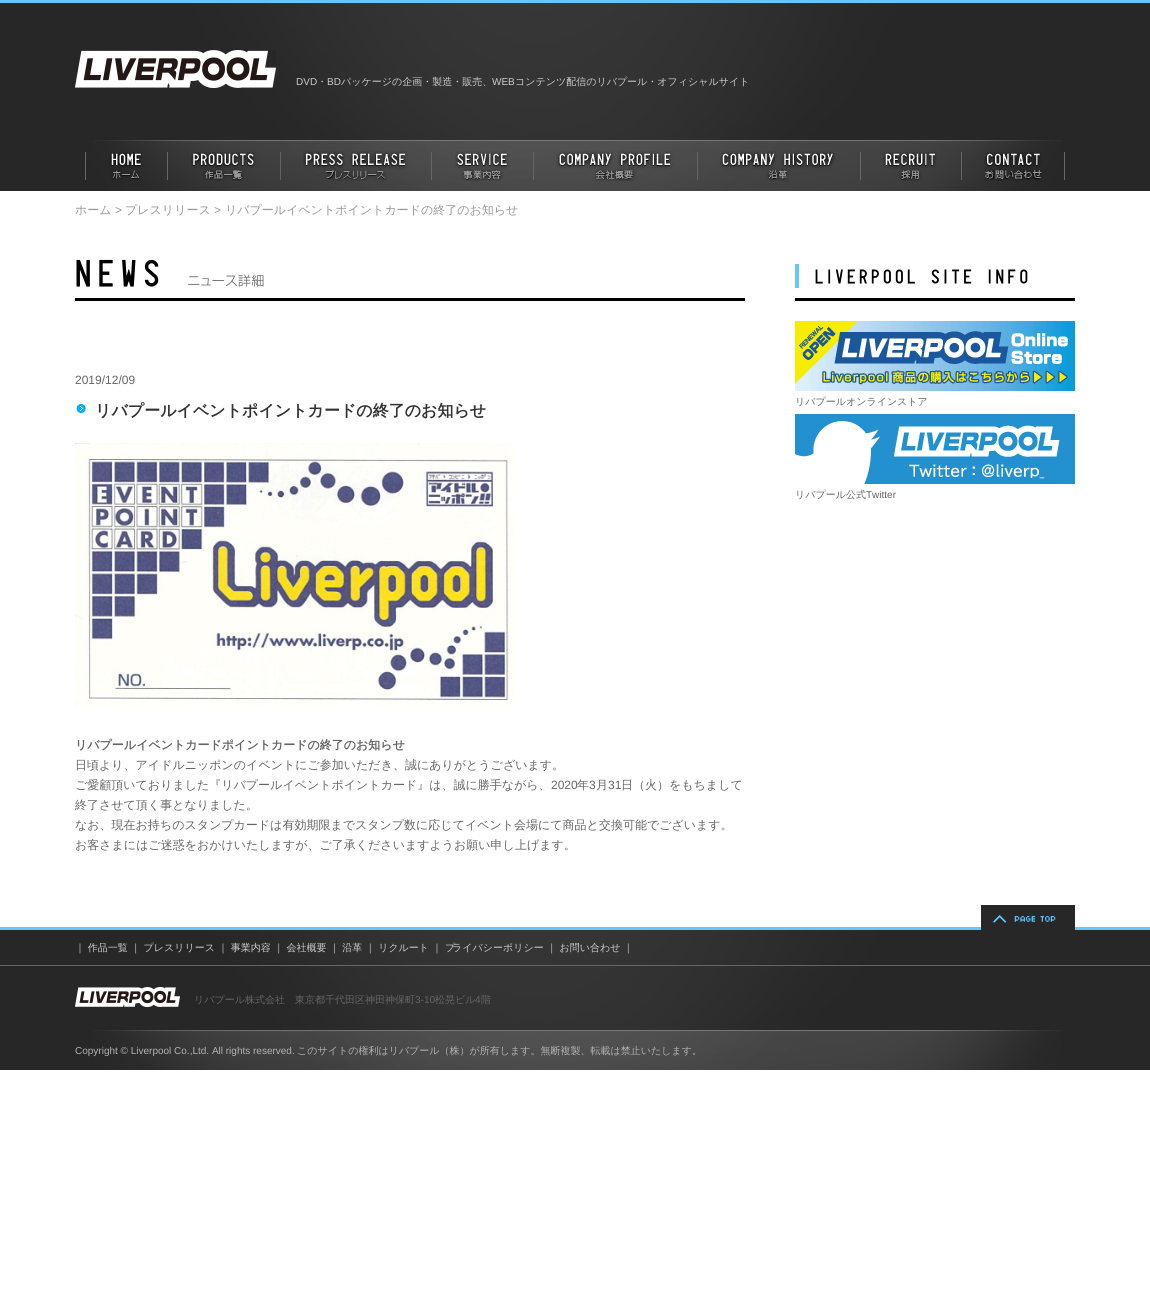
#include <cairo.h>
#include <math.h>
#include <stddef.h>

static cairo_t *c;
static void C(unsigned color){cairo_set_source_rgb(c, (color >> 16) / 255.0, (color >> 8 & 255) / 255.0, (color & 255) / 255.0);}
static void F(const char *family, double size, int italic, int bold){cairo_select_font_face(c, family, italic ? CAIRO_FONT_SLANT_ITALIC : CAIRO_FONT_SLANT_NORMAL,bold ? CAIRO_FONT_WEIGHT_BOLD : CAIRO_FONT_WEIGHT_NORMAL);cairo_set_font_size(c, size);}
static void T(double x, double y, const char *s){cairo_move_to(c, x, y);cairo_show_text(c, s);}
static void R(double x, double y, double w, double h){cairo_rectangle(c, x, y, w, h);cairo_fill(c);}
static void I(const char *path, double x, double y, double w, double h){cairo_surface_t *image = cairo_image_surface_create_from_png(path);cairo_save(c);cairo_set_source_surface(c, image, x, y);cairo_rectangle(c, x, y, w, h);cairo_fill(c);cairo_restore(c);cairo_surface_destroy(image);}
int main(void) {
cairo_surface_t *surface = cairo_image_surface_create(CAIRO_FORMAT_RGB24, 1150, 1315);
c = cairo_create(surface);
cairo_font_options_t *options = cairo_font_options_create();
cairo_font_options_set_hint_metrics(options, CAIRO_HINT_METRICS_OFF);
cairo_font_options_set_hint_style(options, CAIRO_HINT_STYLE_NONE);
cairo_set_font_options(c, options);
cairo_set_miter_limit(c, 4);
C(0xffffff);
cairo_paint(c);
I("1.png",0,0,1150,191);
I("2.png",93,3,969,188);
I("3.png",75,50,201,38);
F("Liberation Sans",10,0,0);
C(0xcccccc);
T(296,85,"DVD");
F("WenQuanYi Zen Hei Medium",10,0,0);
T(317,85,"・");
F("Liberation Sans",10,0,0);
T(327,85,"BD");
F("WenQuanYi Zen Hei Medium",10,0,0);
T(341,85,"パッケージの企画・製造・販売、");
F("Liberation Sans",10,0,0);
T(492,85,"WEB");
F("WenQuanYi Zen Hei Medium",10,0,0);
T(515,85,"コンテンツ配信のリバプール・オフィシャルサイト");
I("4.png",85,152,83,28);
I("5.png",191,152,90,29);
I("6.png",303,151,129,30);
I("7.png",455,151,79,30);
I("8.png",556,151,142,31);
I("9.png",720,151,141,30);
I("10.png",883,152,79,29);
I("11.png",984,152,81,29);
F("WenQuanYi Zen Hei Medium",12,0,0);
C(0x999999);
T(75,214,"ホーム");
F("Liberation Sans",12,0,0);
T(115,214,">");
F("WenQuanYi Zen Hei Medium",12,0,0);
T(125,214,"プレスリリース");
F("Liberation Sans",12,0,0);
T(214,214,">");
F("WenQuanYi Zen Hei Medium",12,0,0);
T(225,214,"リバプールイベントポイントカードの終了のお知らせ");
C(0x000000);
R(75,298,670,3);
I("12.png",76,259,188,28);
F("Liberation Sans",12,0,0);
C(0x656565);
T(75,384,"2019/12/09");
I("13.png",76,404,10,9);
F("WenQuanYi Zen Hei",16,0,1);
C(0x333333);
T(95,416,"リバプールイベントポイントカードの終了のお知らせ");
I("14.png",75,443,440,264);
F("WenQuanYi Zen Hei",12,0,1);
C(0x656565);
T(75,749,"リバプールイベントカードポイントカードの終了のお知らせ");
F("WenQuanYi Zen Hei Medium",12,0,0);
T(75,769,"日頃より、アイドルニッポンのイベントにご参加いただき、誠にありがとうございます。");
T(75,789,"ご愛顧頂いておりました『リバプールイベントポイントカード』は、誠に勝手ながら、");
F("Liberation Sans",12,0,0);
T(551,789,"2020");
F("WenQuanYi Zen Hei Medium",12,0,0);
T(577,789,"年");
F("Liberation Sans",12,0,0);
T(589,789,"3");
F("WenQuanYi Zen Hei Medium",12,0,0);
T(596,789,"月");
F("Liberation Sans",12,0,0);
T(608,789,"31");
F("WenQuanYi Zen Hei Medium",12,0,0);
T(621,789,"日（火）をもちまして");
T(75,809,"終了させて頂く事となりました。");
T(75,829,"なお、現在お持ちのスタンプカードは有効期限までスタンプ数に応じてイベント会場にて商品と交換可能でございます。");
T(75,849,"お客さまにはご迷惑をおかけいたしますが、ご了承くださいますようお願い申し上げます。");
C(0x000000);
R(795,298,280,3);
I("15.png",795,264,233,24);
I("16.png",795,321,280,70);
F("WenQuanYi Zen Hei Medium",10,0,0);
C(0x656565);
T(795,405,"リバプールオンラインストア");
I("17.png",795,414,280,70);
T(795,498,"リバプール公式");
F("Liberation Sans",10,0,0);
T(866,498,"Twitter");
I("18.png",0,927,1150,143);
I("19.png",93,930,969,140);
I("20.png",981,905,94,25);
F("WenQuanYi Zen Hei Medium",10,0,0);
C(0xcccccc);
T(75,951,"｜ 作品一覧 ｜ プレスリリース ｜ 事業内容 ｜ 会社概要 ｜ 沿革 ｜ リクルート ｜ プ");
T(452,951,"ライバシーポリシー ｜ お問い合わせ ｜");
I("21.png",75,987,105,20);
C(0x656565);
T(194,1003,"リバプール株式会社　東京都千代田区神田神保町");
F("Liberation Sans",10,0,0);
T(415,1003,"3-10");
F("WenQuanYi Zen Hei Medium",10,0,0);
T(435,1003,"松晃ビル");
F("Liberation Sans",10,0,0);
T(475,1003,"4");
F("WenQuanYi Zen Hei Medium",10,0,0);
T(481,1003,"階");
F("Liberation Sans",10,0,0);
C(0xb2b2b2);
T(75,1054,"Copyright © Liverpool Co.,Ltd. All rights reserved.");
F("WenQuanYi Zen Hei Medium",10,0,0);
T(297,1054,"このサイトの権利はリバプール（株）が所有します。無断複製、転載は禁止いたします。");
cairo_surface_write_to_png(surface, "o.png");
cairo_font_options_destroy(options);
cairo_destroy(c);
cairo_surface_destroy(surface);
return 0;
}
